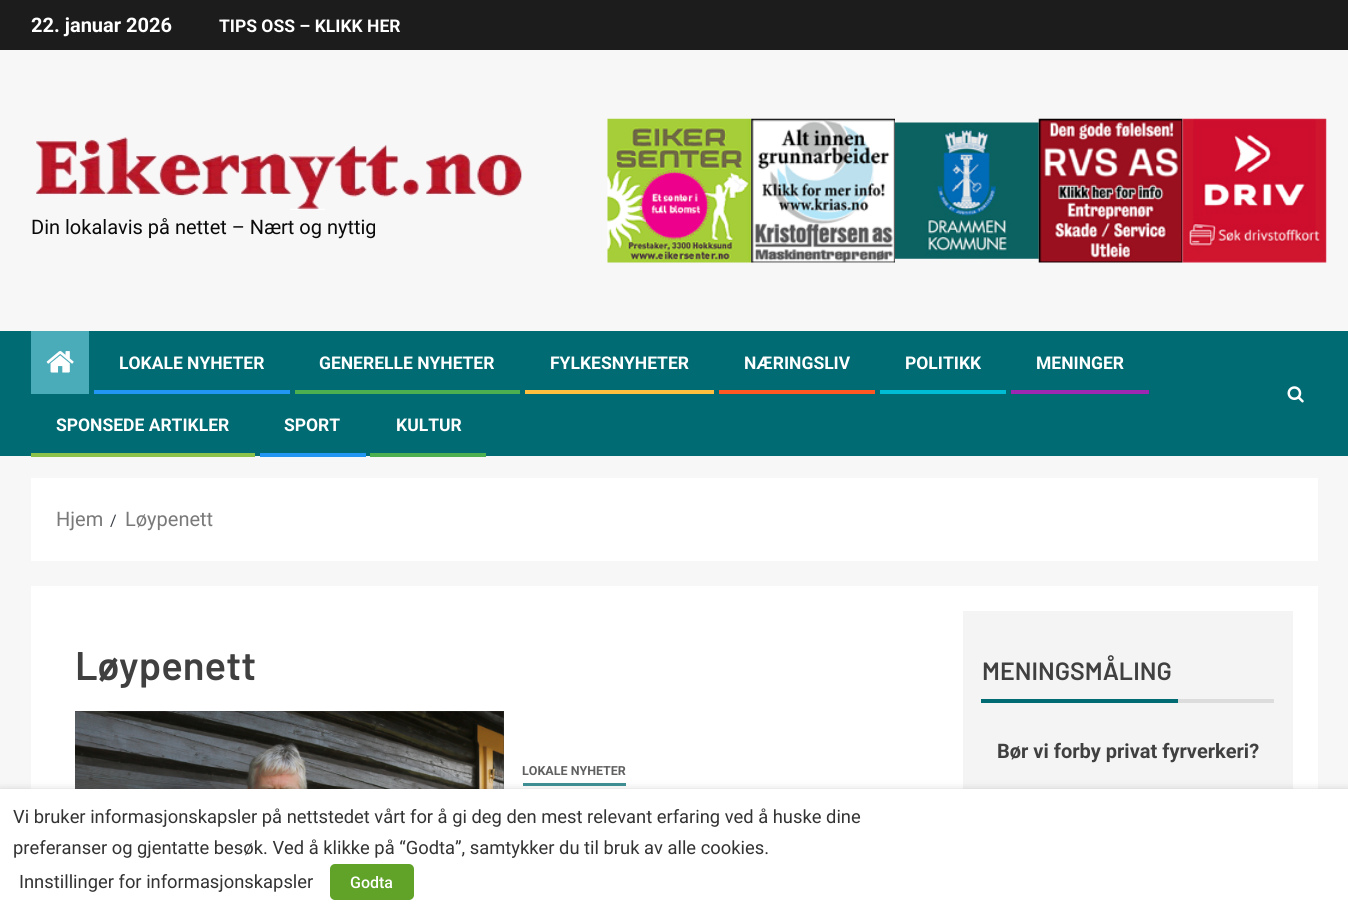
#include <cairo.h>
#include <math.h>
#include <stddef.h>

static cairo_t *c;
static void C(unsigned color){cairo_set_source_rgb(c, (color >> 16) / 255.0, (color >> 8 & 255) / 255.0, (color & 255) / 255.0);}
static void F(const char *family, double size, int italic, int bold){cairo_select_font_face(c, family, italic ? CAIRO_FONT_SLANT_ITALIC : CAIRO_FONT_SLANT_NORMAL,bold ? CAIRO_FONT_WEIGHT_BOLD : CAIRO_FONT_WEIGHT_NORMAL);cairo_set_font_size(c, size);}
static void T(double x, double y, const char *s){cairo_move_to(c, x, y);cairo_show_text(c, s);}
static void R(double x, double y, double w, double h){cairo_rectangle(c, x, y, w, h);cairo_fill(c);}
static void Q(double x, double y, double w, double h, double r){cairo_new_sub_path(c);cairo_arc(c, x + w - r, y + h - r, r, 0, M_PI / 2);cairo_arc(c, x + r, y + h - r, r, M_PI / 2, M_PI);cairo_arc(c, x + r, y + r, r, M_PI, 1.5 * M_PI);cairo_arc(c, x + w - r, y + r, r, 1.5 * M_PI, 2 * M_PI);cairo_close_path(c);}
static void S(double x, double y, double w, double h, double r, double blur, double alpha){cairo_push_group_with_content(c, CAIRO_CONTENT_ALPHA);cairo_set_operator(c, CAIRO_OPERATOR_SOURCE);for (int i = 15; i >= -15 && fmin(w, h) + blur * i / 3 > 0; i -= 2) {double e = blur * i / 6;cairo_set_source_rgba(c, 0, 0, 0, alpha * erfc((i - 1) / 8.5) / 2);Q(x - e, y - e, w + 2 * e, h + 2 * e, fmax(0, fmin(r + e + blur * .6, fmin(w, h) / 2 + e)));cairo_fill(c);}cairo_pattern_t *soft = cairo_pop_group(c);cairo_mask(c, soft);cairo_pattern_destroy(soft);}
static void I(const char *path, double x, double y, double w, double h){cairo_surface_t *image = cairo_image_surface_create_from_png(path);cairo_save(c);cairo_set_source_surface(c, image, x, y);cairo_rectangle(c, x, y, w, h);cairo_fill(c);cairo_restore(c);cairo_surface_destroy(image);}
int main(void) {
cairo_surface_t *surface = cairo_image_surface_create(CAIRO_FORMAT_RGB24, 1348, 912);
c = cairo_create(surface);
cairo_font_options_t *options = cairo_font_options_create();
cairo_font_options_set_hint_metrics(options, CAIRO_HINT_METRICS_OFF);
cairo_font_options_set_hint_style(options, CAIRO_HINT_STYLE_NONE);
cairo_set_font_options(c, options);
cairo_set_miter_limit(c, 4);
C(0xf7f7f7);
cairo_paint(c);
C(0x1c1c1c);
R(0,0,1348,50);
F("Roboto",20,0,1);
C(0xffffff);
T(31,32,"22. januar 2026");
F("Roboto",17.5,0,1);
T(219,32,"TIPS OSS – KLIKK HER");
I("1.png",36,137,486,73);
F("Roboto",20,0,0);
C(0x0a0a0a);
T(31,234,"Din lokalavis på nettet – Nært og nyttig");
I("2.png",607,118,145,145);
I("3.png",751,118,144,145);
I("4.png",895,122,144,137);
I("5.png",1038,118,145,145);
I("6.png",1182,118,145,145);
C(0x006b73);
R(0,331,1348,125);
C(0x4aabb9);
R(31,331,58,63);
I("7.png",46,351,28,22);
F("Roboto",17.5,0,1);
C(0xffffff);
T(119,369,"LOKALE NYHETER");
C(0x2196f3);
R(94,390,196,4);
C(0xffffff);
T(319,369,"GENERELLE NYHETER");
C(0x4caf50);
R(295,390,225,4);
C(0xffffff);
T(550,369,"FYLKESNYHETER");
C(0xffbf3f);
R(525,390,189,4);
C(0xffffff);
T(744,369,"NÆRINGSLIV");
C(0xff5722);
R(719,390,156,4);
C(0xffffff);
T(905,369,"POLITIKK");
C(0x00bcd4);
R(880,390,126,4);
C(0xffffff);
T(1036,369,"MENINGER");
C(0x9c27b0);
R(1011,390,138,4);
C(0xffffff);
T(56,431,"SPONSEDE ARTIKLER");
C(0x8bc34a);
R(31,453,224,4);
C(0xffffff);
T(284,431,"SPORT");
C(0x2196f3);
R(260,453,106,4);
C(0xffffff);
T(396,431,"KULTUR");
C(0x4caf50);
R(370,453,116,4);
I("8.png",1287,386,17,17);
C(0xffffff);
R(31,478,1287,83);
F("Roboto",20,0,0);
C(0x797979);
T(56,526,"Hjem");
F("Roboto",16,0,0);
C(0x393e46);
T(110,526,"/");
F("Roboto",20,0,0);
C(0x797979);
T(125,526,"Løypenett");
C(0xffffff);
R(31,586,1287,203);
F("Barlow SemiBold",40,0,0);
C(0x404040);
T(75,680,"Løypenett");
R(75,711,429,78);
I("9.png",75,711,429,78);
C(0x409096);
R(523,783,103,3);
F("Roboto",12.5,0,1);
C(0x606060);
T(522,775,"LOKALE NYHETER");
C(0xf4f4f4);
R(963,611,330,178);
F("Barlow SemiBold",25,0,0);
C(0x404040);
T(982,680,"MENINGSMÅLING");
C(0x006b73);
R(981,699,197,4);
C(0xdcdcdc);
R(1178,699,96,4);
F("Roboto",20,0,1);
C(0x404040);
T(997,758,"Bør vi forby privat fyrverkeri?");
C(0x000000);
S(0,795,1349,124,0,6,.5);
C(0xffffff);
R(0,789,1348,123);
F("Roboto",18.35,0,0);
C(0x333333);
T(13,823,"Vi bruker informasjonskapsler på nettstedet vårt for å gi deg den mest relevant erfaring ved å huske dine");
T(13,854,"preferanser og gjentatte besøk. Ved å klikke på “Godta”, samtykker du til bruk av alle cookies.");
T(19,888,"Innstillinger for informasjonskapsler");
C(0x61a229);
Q(330,864,84,36,5);
cairo_fill(c);
F("Roboto Medium",16,0,0);
C(0xffffff);
T(350,888,"Godta");
cairo_surface_write_to_png(surface, "o.png");
cairo_font_options_destroy(options);
cairo_destroy(c);
cairo_surface_destroy(surface);
return 0;
}
